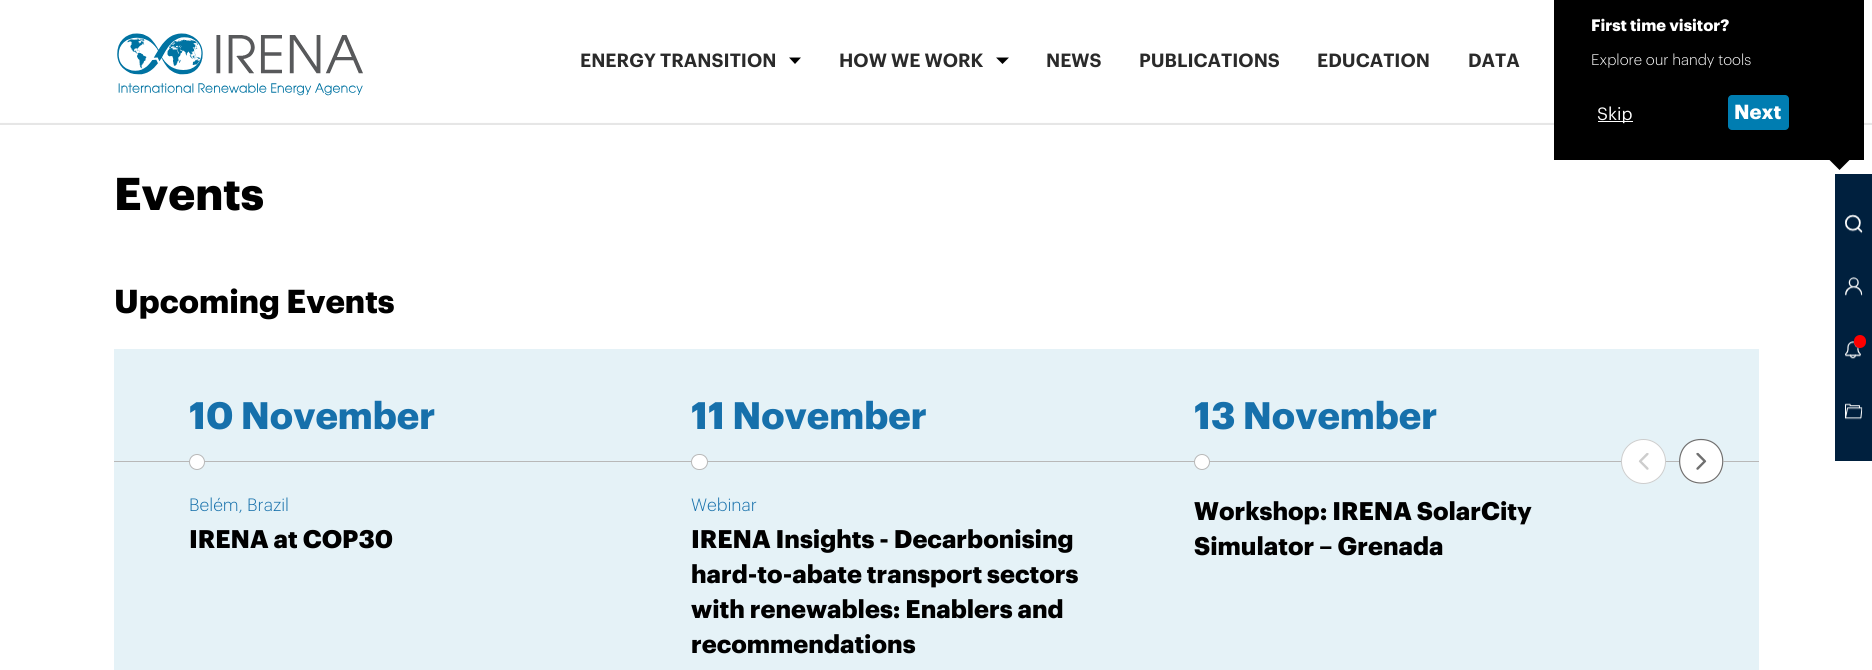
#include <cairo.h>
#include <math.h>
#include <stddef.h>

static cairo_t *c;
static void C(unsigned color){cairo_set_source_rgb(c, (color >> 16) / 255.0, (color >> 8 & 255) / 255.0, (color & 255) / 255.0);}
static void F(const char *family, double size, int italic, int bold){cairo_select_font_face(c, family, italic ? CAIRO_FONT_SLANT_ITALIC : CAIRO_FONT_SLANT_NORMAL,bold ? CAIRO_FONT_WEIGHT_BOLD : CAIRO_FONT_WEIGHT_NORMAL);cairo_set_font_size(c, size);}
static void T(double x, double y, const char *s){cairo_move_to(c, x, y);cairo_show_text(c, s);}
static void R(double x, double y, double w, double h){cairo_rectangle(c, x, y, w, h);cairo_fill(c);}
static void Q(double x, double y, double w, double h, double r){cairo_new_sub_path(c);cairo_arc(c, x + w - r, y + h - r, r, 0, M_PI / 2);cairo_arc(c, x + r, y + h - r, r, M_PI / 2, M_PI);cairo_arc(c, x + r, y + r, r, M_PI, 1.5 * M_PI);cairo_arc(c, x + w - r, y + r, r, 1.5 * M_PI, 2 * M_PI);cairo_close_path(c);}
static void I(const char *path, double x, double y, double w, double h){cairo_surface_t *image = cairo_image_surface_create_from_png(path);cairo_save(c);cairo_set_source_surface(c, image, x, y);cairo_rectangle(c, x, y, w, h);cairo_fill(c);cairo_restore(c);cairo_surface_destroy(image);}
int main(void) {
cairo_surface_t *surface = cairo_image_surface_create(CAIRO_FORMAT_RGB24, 1872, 670);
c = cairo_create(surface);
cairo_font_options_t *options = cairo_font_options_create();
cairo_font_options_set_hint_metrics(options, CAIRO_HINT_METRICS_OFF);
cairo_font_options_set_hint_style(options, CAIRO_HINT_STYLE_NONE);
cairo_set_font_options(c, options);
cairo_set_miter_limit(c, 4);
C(0xffffff);
cairo_paint(c);
C(0x00203e);
R(1835,174,37,287);
C(0xe6e6e6);
cairo_new_path(c);
cairo_move_to(c,0,122);
cairo_line_to(c,0,125);
cairo_line_to(c,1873,125);
cairo_line_to(c,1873,3);
cairo_line_to(c,1872,3);
cairo_line_to(c,1872,122);
cairo_close_path(c);
cairo_fill(c);
cairo_set_source_rgba(c,1,1,1,0.92);
R(0,122,1872,1);
C(0x000000);
R(1554,0,310,160);
F("Graphik",16.25,0,1);
C(0xffffff);
T(1591,31,"First time visitor?");
F("Graphik Light",15,0,0);
T(1591,65,"Explore our handy tools");
R(1598,121,35,1);
F("Graphik",17.5,0,0);
T(1597,120,"Skip");
C(0x007db1);
Q(1728,95,61,35,4);
cairo_fill(c);
F("Graphik",20,0,1);
C(0xffffff);
T(1734,119,"Next");
C(0x000000);
cairo_new_path(c);
cairo_move_to(c,1829.5,160);
cairo_line_to(c,1849.5,160);
cairo_line_to(c,1839.5,170);
cairo_close_path(c);
cairo_fill(c);
I("1.png",1845,214,18,20);
I("2.png",1845,277,18,19);
I("3.png",1845,341,16,18);
C(0xff0000);
Q(1854,335,12,13,6);
cairo_fill(c);
I("4.png",1845,403,18,17);
F("Graphik",45,0,1);
C(0x000000);
T(114,210,"Events");
F("Graphik",32.5,0,1);
T(114,313,"Upcoming Events");
C(0xe5f2f7);
R(114,349,1645,321);
F("Graphik",37.5,0,1);
C(0x1670ab);
T(189,429,"10 November");
C(0xb8b8b8);
R(114,461,1645,1);
C(0xffffff);
cairo_new_path(c);
cairo_arc(c,197,462,7.5,0,2 * M_PI);
cairo_fill_preserve(c);
C(0xb8b8b8);
cairo_set_line_width(c,1);
cairo_stroke(c);
F("Graphik Light",17.5,0,0);
C(0x1670ab);
T(189,511,"Belém, Brazil");
F("Graphik",25,0,1);
C(0x000000);
T(189,548,"IRENA at COP30");
F("Graphik",37.5,0,1);
C(0x1670ab);
T(691,429,"11 November");
C(0xffffff);
Q(691.5,454.5,16,15,7.5);
cairo_fill_preserve(c);
C(0xb8b8b8);
cairo_stroke(c);
F("Graphik Light",17.5,0,0);
C(0x1670ab);
T(691,511,"Webinar");
F("Graphik",25,0,1);
C(0x000000);
T(691,548,"IRENA Insights - Decarbonising");
T(691,583,"hard-to-abate transport sectors");
T(691,618,"with renewables: Enablers and");
T(691,653,"recommendations");
F("Graphik",37.5,0,1);
C(0x1670ab);
T(1194,429,"13 November");
C(0xffffff);
cairo_new_path(c);
cairo_arc(c,1202,462,7.5,0,2 * M_PI);
cairo_fill_preserve(c);
C(0xb8b8b8);
cairo_stroke(c);
F("Graphik",25,0,1);
C(0x000000);
T(1194,520,"Workshop: IRENA SolarCity");
T(1194,555,"Simulator – Grenada");
C(0xffffff);
cairo_new_path(c);
cairo_arc(c,1643.5,461.5,22.5,0,2 * M_PI);
cairo_fill(c);
cairo_arc(c,1643.5,461.5,22,0,2 * M_PI);
cairo_set_source_rgba(c,0.439,0.439,0.439,0.35);
cairo_stroke(c);
I("5.png",1638,453,11,17);
C(0xffffff);
cairo_new_path(c);
cairo_move_to(c,1701,484);
cairo_curve_to(c,1672,484,1672,439,1701,439);
cairo_curve_to(c,1731,439,1731,484,1701,484);
cairo_close_path(c);
cairo_fill(c);
cairo_new_path(c);
cairo_move_to(c,1701,483);
cairo_curve_to(c,1672.5,483,1672.5,439.5,1701,439.5);
cairo_curve_to(c,1730,439.5,1730,483,1701,483);
cairo_close_path(c);
C(0x707070);
cairo_set_line_width(c,1.2);
cairo_stroke(c);
I("6.png",1696,452,11,18);
I("7.png",117,33,246,63);
F("Graphik SemiBold",18.75,0,0);
C(0x2a2a2a);
T(580,67,"ENERGY TRANSITION");
C(0x000000);
cairo_new_path(c);
cairo_move_to(c,789,57.5);
cairo_line_to(c,801,57.5);
cairo_line_to(c,795,64);
cairo_close_path(c);
cairo_fill(c);
C(0x2a2a2a);
T(839,67,"HOW WE WORK");
C(0x000000);
cairo_new_path(c);
cairo_move_to(c,996,57.5);
cairo_line_to(c,1009,57.5);
cairo_line_to(c,1002.5,64);
cairo_close_path(c);
cairo_fill(c);
C(0x2a2a2a);
T(1046,67,"NEWS");
T(1139,67,"PUBLICATIONS");
T(1317,67,"EDUCATION");
T(1468,67,"DATA");
cairo_surface_write_to_png(surface, "o.png");
cairo_font_options_destroy(options);
cairo_destroy(c);
cairo_surface_destroy(surface);
return 0;
}
